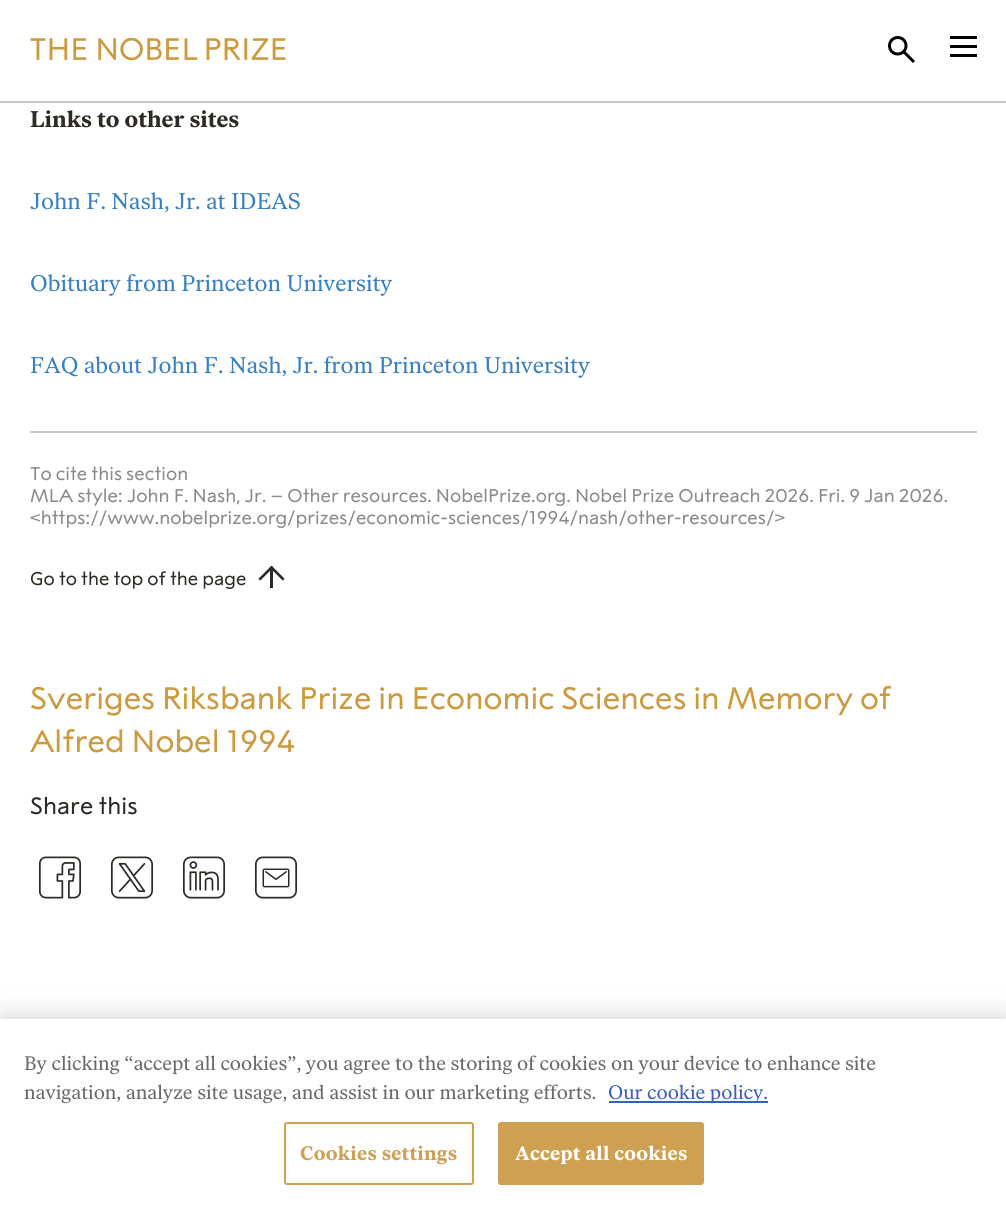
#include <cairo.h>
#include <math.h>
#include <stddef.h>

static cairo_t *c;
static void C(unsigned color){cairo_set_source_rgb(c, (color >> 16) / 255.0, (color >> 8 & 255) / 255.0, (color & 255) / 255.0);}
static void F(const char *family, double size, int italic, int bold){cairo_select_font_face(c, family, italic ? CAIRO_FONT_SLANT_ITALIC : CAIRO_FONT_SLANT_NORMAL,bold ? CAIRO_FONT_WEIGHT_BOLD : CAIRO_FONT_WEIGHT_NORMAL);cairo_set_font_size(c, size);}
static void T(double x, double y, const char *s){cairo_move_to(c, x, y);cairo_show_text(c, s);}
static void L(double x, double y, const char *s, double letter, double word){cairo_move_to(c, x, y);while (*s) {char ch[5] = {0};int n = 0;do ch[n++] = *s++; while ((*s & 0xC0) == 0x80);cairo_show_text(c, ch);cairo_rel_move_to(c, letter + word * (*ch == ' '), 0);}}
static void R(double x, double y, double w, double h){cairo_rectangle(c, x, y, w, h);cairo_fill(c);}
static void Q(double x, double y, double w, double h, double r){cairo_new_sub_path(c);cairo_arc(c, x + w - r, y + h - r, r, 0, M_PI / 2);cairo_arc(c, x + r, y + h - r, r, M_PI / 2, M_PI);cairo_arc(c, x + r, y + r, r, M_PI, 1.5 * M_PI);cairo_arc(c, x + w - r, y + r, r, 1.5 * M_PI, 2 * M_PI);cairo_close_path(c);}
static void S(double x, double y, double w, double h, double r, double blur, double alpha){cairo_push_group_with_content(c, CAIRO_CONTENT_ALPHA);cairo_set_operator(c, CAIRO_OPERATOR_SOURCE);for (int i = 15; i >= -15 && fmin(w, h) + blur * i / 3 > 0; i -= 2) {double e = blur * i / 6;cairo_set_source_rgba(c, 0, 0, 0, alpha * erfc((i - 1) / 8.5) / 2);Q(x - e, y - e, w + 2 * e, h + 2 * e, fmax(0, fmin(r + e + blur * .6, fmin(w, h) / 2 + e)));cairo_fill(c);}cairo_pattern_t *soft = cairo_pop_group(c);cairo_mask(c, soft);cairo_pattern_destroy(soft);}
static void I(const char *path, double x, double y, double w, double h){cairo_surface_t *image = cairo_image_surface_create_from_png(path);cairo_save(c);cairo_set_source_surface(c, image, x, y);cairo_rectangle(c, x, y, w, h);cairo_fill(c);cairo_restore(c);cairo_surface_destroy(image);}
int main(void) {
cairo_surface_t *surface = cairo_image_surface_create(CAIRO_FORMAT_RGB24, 1006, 1208);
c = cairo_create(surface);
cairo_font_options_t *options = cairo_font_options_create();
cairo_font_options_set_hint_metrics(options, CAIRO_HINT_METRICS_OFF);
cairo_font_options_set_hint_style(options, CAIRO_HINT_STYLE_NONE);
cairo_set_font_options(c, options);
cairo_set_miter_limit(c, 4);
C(0xffffff);
cairo_paint(c);
C(0xc8c8c8);
R(0,101,1006,2);
I("1.png",30,38,256,23);
I("2.png",888,36,27,27);
C(0x000000);
R(950,45,27,3);
R(950,36,27,3);
R(950,54,27,3);
F("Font",22.65,0,1);
C(0x2e2a25);
T(30,127,"Links to other sites");
F("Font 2",22.65,0,0);
C(0x3880c3);
T(30,209,"John F. Nash, Jr. at IDEAS");
T(30,291,"Obituary from Princeton University");
T(30,373,"FAQ about John F. Nash, Jr. from Princeton University");
C(0xc8c8c8);
R(30,431,947,2);
F("Font",18.4,0,0);
C(0x8a8a8d);
T(30,480,"To cite this section");
T(30,502,"MLA style: John F. Nash, Jr. – Other resources. NobelPrize.org. Nobel Prize Outreach 2026. Fri. 9 Jan 2026.");
T(30,524,"<https://www.nobelprize.org/prizes/economic-sciences/1994/nash/other-resources/>");
C(0x2e2a25);
T(30,585,"Go to the top of the page");
I("3.png",258,566,27,22);
F("Font",31,0,0);
C(0xcc9b40);
T(30,709,"Sveriges Riksbank Prize in Economic Sciences in Memory of");
T(30,752,"Alfred Nobel 1994");
F("Font",23.5,0,0);
C(0x2e2a25);
T(30,814,"Share this");
I("4.png",39,856,42,43);
I("5.png",111,856,42,43);
I("6.png",183,856,42,43);
I("7.png",255,856,42,43);
C(0x000000);
S(0,1019,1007,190,0,13.5,.2);
C(0xffffff);
R(0,1019,1006,189);
F("Font 2",19.5,0,0);
C(0x696969);
T(24,1070,"By clicking “accept all cookies”, you agree to the storing of cookies on your device to enhance site");
T(24,1099,"navigation, analyze site usage, and assist in our marketing efforts.");
C(0x3860be);
R(609,1101,159,2);
T(608,1099,"Our cookie policy.");
Q(285,1123,188,61,2);
C(0xcea152);
cairo_stroke(c);
F("Font",19.5,0,1);
L(300,1160,"Cookies settings",.25,0);
Q(499,1123,204,61,2);
cairo_fill_preserve(c);
cairo_stroke(c);
C(0xffffff);
L(515,1160,"Accept all cookies",.25,0);
cairo_surface_write_to_png(surface, "o.png");
cairo_font_options_destroy(options);
cairo_destroy(c);
cairo_surface_destroy(surface);
return 0;
}
